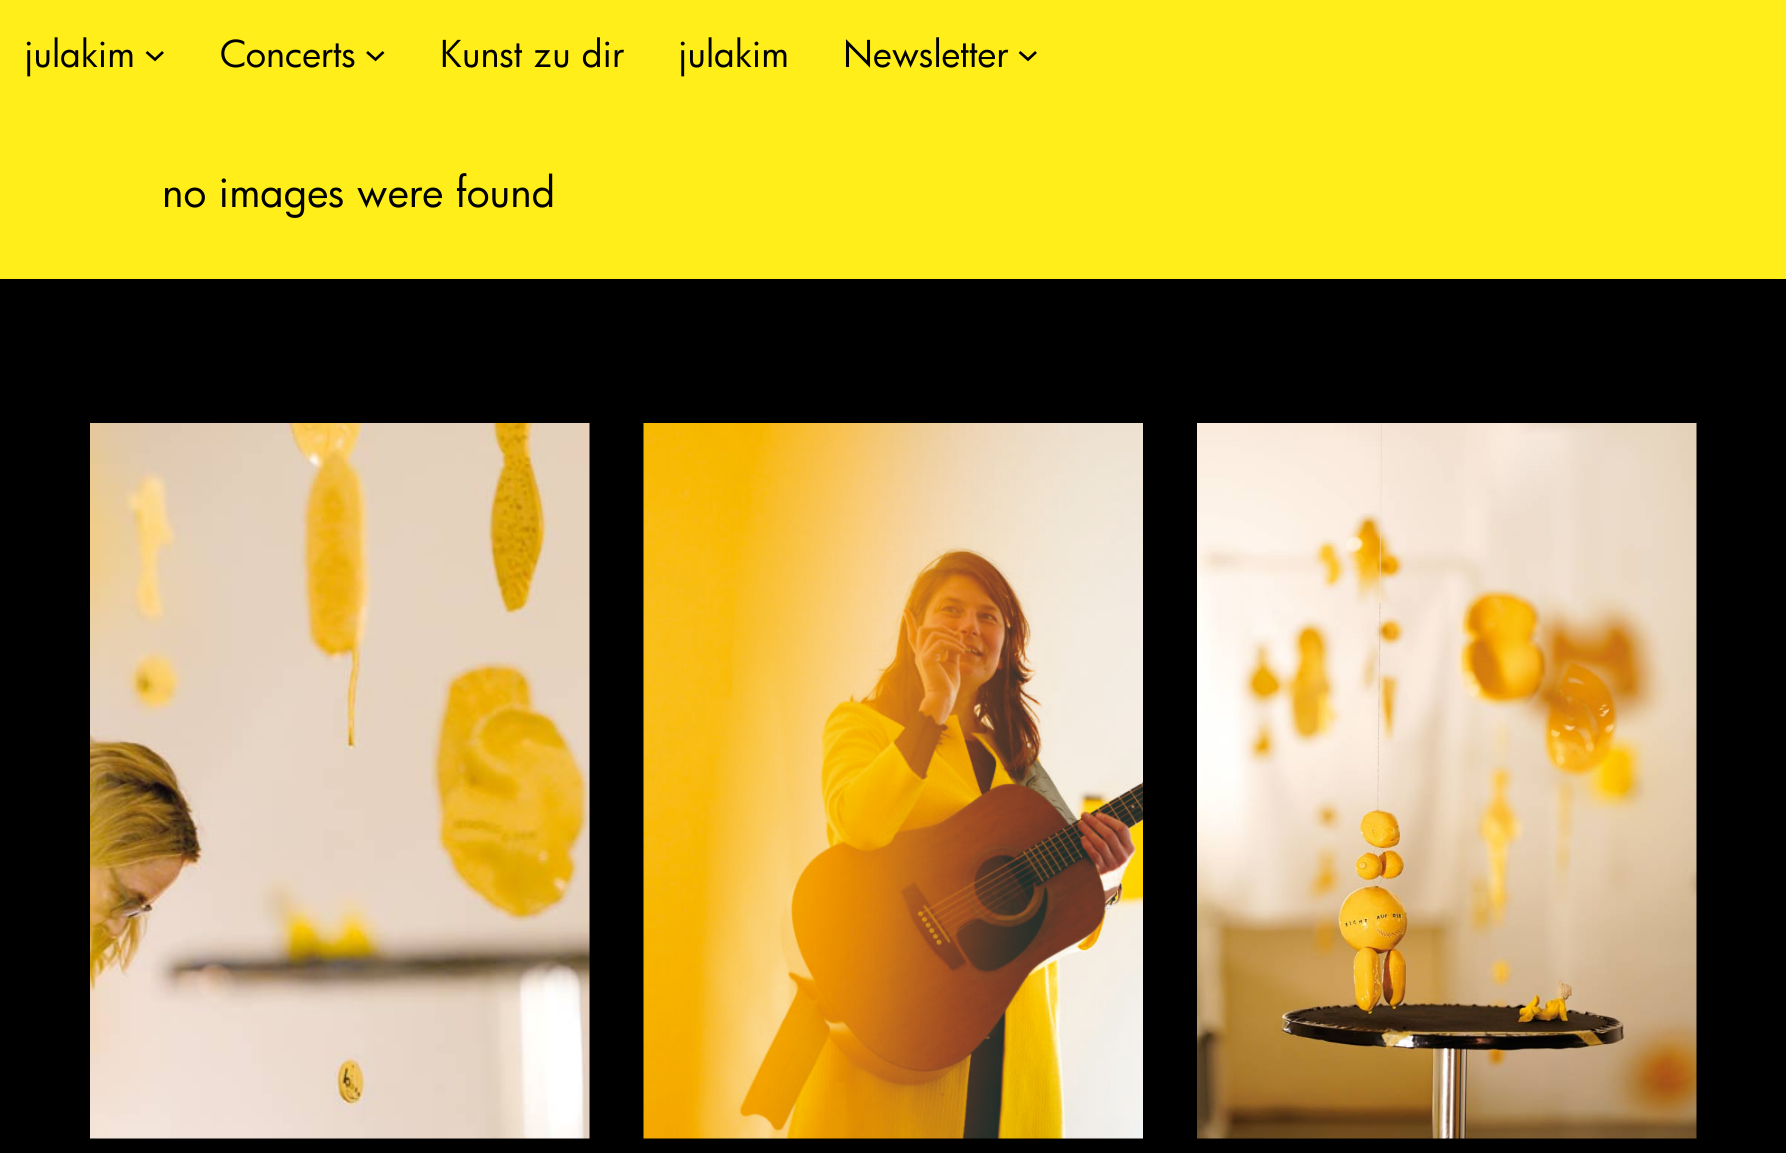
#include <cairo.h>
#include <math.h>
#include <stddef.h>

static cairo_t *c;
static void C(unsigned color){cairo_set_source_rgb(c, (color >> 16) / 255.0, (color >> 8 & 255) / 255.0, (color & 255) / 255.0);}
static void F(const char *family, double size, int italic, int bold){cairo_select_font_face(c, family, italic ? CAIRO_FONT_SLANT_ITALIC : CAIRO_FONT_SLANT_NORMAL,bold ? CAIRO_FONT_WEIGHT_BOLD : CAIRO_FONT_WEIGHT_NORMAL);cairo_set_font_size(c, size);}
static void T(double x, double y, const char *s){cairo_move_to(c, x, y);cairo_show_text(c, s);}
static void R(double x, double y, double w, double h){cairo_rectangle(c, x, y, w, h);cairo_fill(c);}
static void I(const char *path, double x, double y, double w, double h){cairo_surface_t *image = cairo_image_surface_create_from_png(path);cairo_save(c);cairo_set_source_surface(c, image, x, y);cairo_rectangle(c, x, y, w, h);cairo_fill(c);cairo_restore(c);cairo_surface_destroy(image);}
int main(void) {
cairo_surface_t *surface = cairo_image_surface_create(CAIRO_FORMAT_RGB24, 1786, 1153);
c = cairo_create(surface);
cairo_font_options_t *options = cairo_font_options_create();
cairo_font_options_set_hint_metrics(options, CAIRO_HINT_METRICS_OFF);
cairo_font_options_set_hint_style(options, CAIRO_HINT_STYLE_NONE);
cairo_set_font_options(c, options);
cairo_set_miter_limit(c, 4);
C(0xffee19);
cairo_paint(c);
F("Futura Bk",36,0,0);
C(0x000000);
T(24,67,"julakim");
cairo_new_path(c);
cairo_move_to(c,146.5,52);
cairo_line_to(c,155,59.5);
cairo_line_to(c,163,52);
cairo_set_line_width(c,2.7);
cairo_stroke(c);
T(220,67,"Concerts");
cairo_new_path(c);
cairo_move_to(c,367,52);
cairo_line_to(c,375.5,59.5);
cairo_line_to(c,383.5,52);
cairo_stroke(c);
T(440,67,"Kunst zu dir");
T(678,67,"julakim");
T(843,67,"Newsletter");
cairo_new_path(c);
cairo_move_to(c,1019.5,52);
cairo_line_to(c,1028,59.5);
cairo_line_to(c,1036,52);
cairo_stroke(c);
F("Futura Bk",40.5,0,0);
T(162,207,"no images were found");
R(0,279,1786,874);
I("1.png",90,423,500,716);
I("2.png",643,423,500,716);
I("3.png",1197,423,500,716);
cairo_surface_write_to_png(surface, "o.png");
cairo_font_options_destroy(options);
cairo_destroy(c);
cairo_surface_destroy(surface);
return 0;
}
